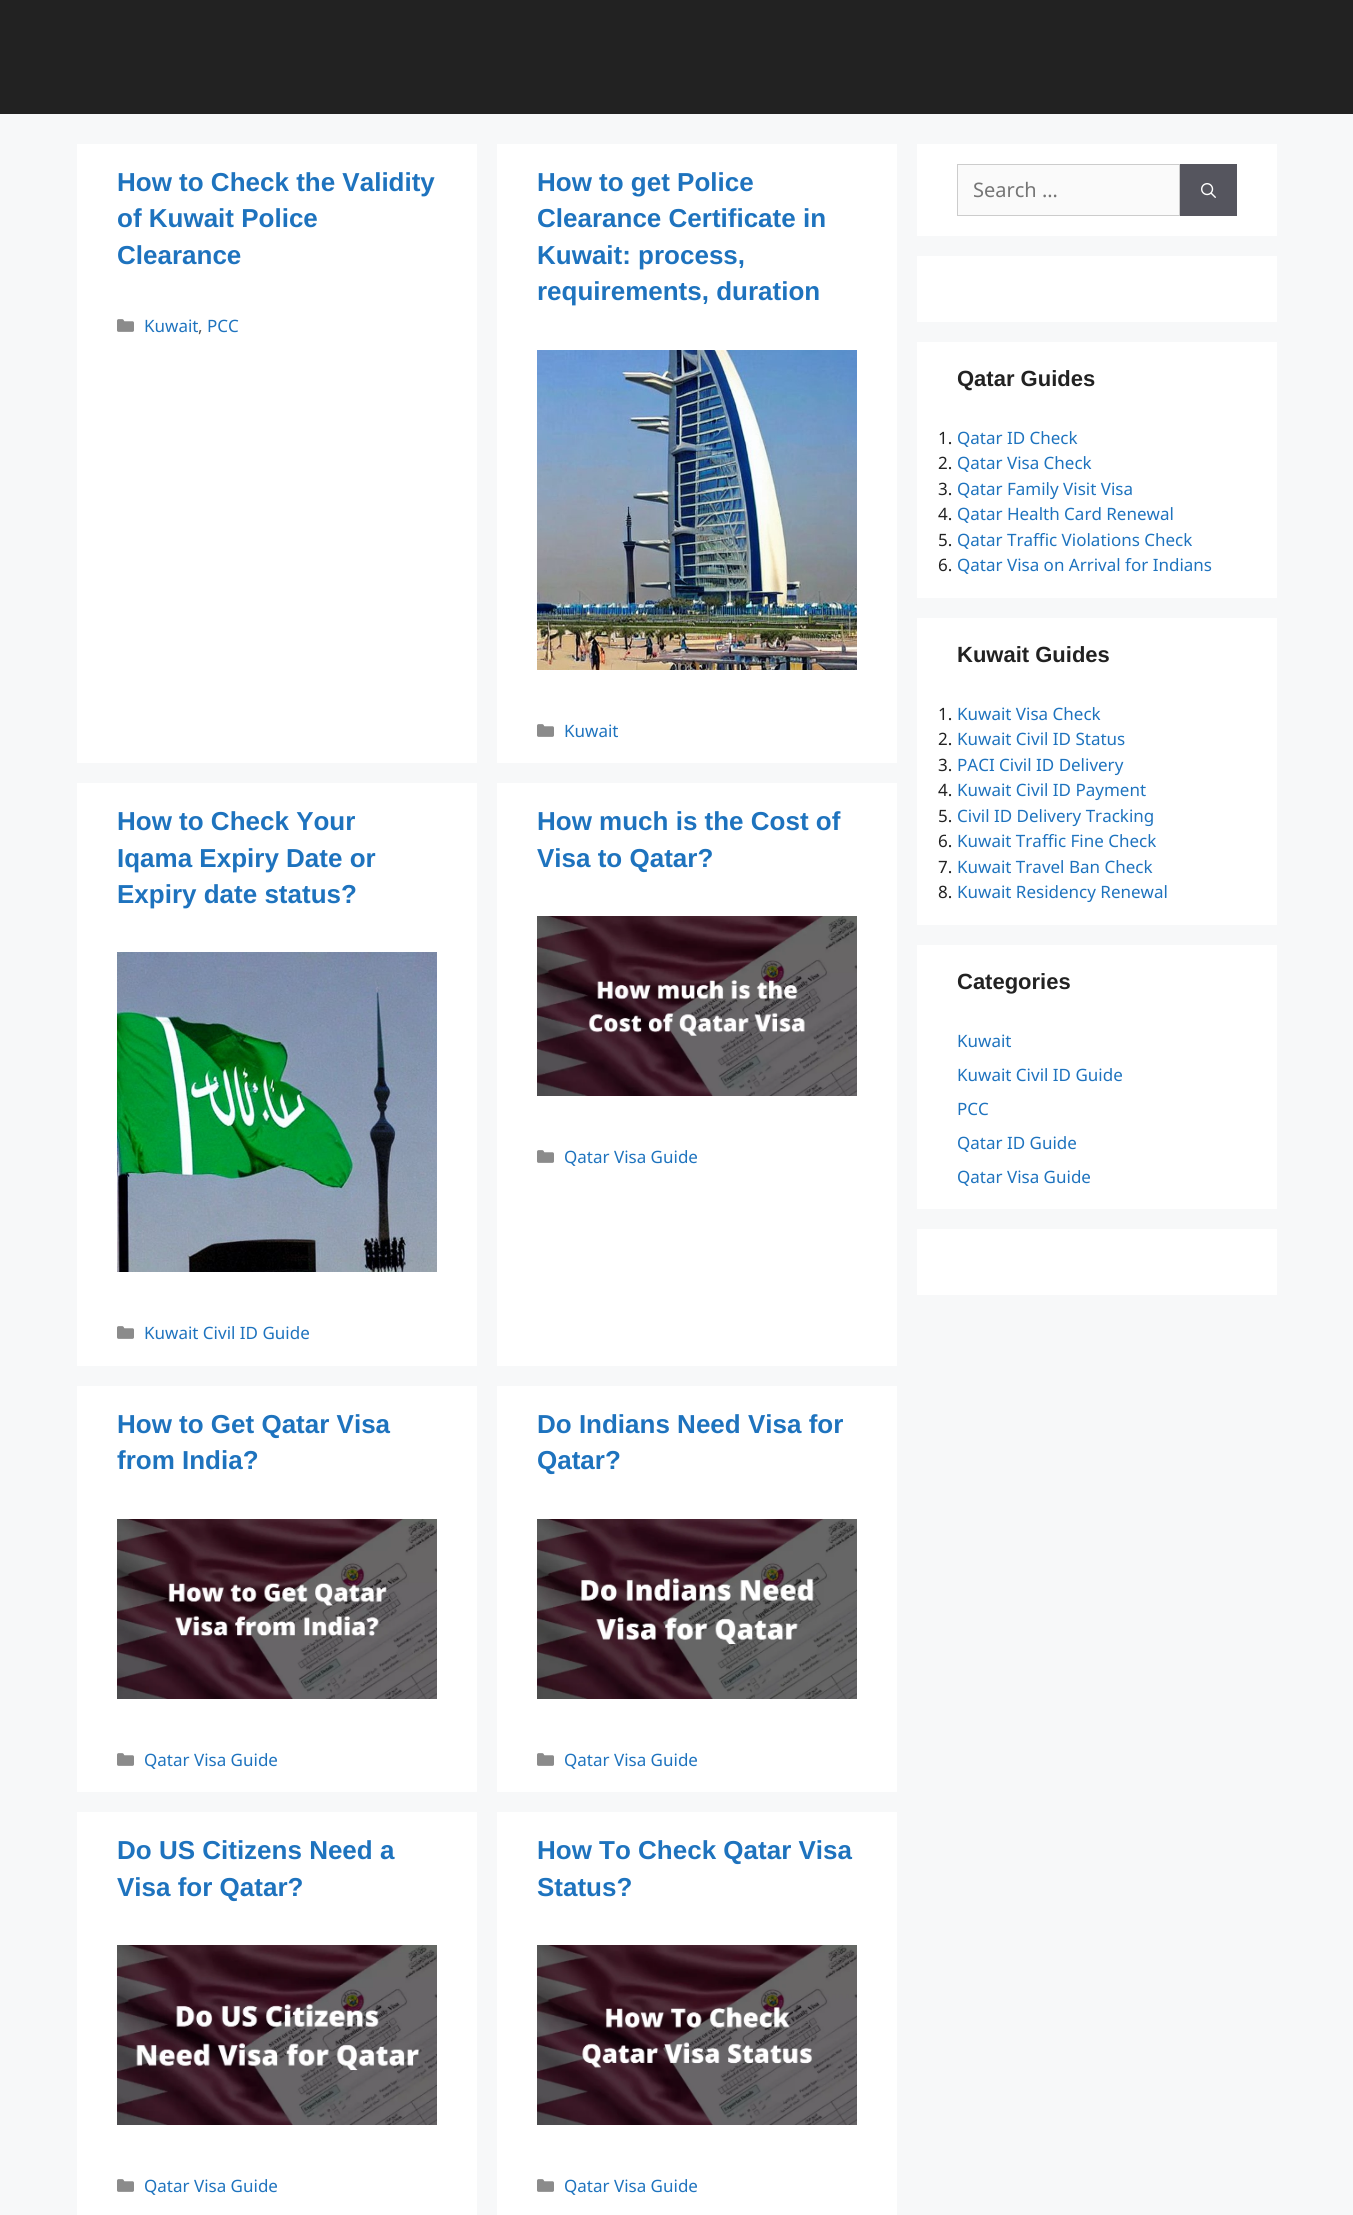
#include <cairo.h>
#include <math.h>
#include <stddef.h>

static cairo_t *c;
static void C(unsigned color){cairo_set_source_rgb(c, (color >> 16) / 255.0, (color >> 8 & 255) / 255.0, (color & 255) / 255.0);}
static void F(const char *family, double size, int italic, int bold){cairo_select_font_face(c, family, italic ? CAIRO_FONT_SLANT_ITALIC : CAIRO_FONT_SLANT_NORMAL,bold ? CAIRO_FONT_WEIGHT_BOLD : CAIRO_FONT_WEIGHT_NORMAL);cairo_set_font_size(c, size);}
static void T(double x, double y, const char *s){cairo_move_to(c, x, y);cairo_show_text(c, s);}
static void R(double x, double y, double w, double h){cairo_rectangle(c, x, y, w, h);cairo_fill(c);}
static void I(const char *path, double x, double y, double w, double h){cairo_surface_t *image = cairo_image_surface_create_from_png(path);cairo_save(c);cairo_set_source_surface(c, image, x, y);cairo_rectangle(c, x, y, w, h);cairo_fill(c);cairo_restore(c);cairo_surface_destroy(image);}
int main(void) {
cairo_surface_t *surface = cairo_image_surface_create(CAIRO_FORMAT_RGB24, 1353, 2215);
c = cairo_create(surface);
cairo_font_options_t *options = cairo_font_options_create();
cairo_font_options_set_hint_metrics(options, CAIRO_HINT_METRICS_OFF);
cairo_font_options_set_hint_style(options, CAIRO_HINT_STYLE_NONE);
cairo_set_font_options(c, options);
cairo_set_miter_limit(c, 4);
C(0xf7f8f9);
cairo_paint(c);
C(0x222222);
R(0,0,1353,114);
C(0xffffff);
R(77,144,400,619);
F("Liberation Sans",26,0,1);
C(0x1e73be);
T(117,191,"How to Check the Validity");
T(117,227,"of Kuwait Police");
T(117,264,"Clearance");
I("1.png",117,319,17,13);
F("Noto Sans",17,0,0);
T(144,332,"Kuwait");
C(0x595959);
T(198,332,",");
C(0x1e73be);
T(207,332,"PCC");
C(0xffffff);
R(497,144,400,619);
F("Liberation Sans",26,0,1);
C(0x1e73be);
T(537,191,"How to get Police");
T(537,227,"Clearance Certificate in");
T(537,264,"Kuwait: process,");
T(537,300,"requirements, duration");
I("2.png",537,350,320,320);
I("1.png",537,724,17,13);
F("Noto Sans",17,0,0);
T(564,737,"Kuwait");
C(0xffffff);
R(77,783,400,583);
F("Liberation Sans",26,0,1);
C(0x1e73be);
T(117,830,"How to Check Your");
T(117,867,"Iqama Expiry Date or");
T(117,903,"Expiry date status?");
I("3.png",117,952,320,320);
I("1.png",117,1326,17,13);
F("Noto Sans",17,0,0);
T(144,1339,"Kuwait Civil ID Guide");
C(0xffffff);
R(497,783,400,583);
F("Liberation Sans",26,0,1);
C(0x1e73be);
T(537,830,"How much is the Cost of");
T(537,867,"Visa to Qatar?");
I("4.png",537,916,320,180);
I("1.png",537,1150,17,13);
F("Noto Sans",17,0,0);
T(564,1163,"Qatar Visa Guide");
C(0xffffff);
R(77,1386,400,406);
F("Liberation Sans",26,0,1);
C(0x1e73be);
T(117,1433,"How to Get Qatar Visa");
T(117,1469,"from India?");
I("5.png",117,1519,320,180);
I("1.png",117,1753,17,13);
F("Noto Sans",17,0,0);
T(144,1766,"Qatar Visa Guide");
C(0xffffff);
R(497,1386,400,406);
F("Liberation Sans",26,0,1);
C(0x1e73be);
T(537,1433,"Do Indians Need Visa for");
T(537,1469,"Qatar?");
I("6.png",537,1519,320,180);
I("1.png",537,1753,17,13);
F("Noto Sans",17,0,0);
T(564,1766,"Qatar Visa Guide");
C(0xffffff);
R(77,1812,400,403);
F("Liberation Sans",26,0,1);
C(0x1e73be);
T(117,1859,"Do US Citizens Need a");
T(117,1896,"Visa for Qatar?");
I("7.png",117,1945,320,180);
I("1.png",117,2179,17,13);
F("Noto Sans",17,0,0);
T(144,2192,"Qatar Visa Guide");
C(0xffffff);
R(497,1812,400,403);
F("Liberation Sans",26,0,1);
C(0x1e73be);
T(537,1859,"How To Check Qatar Visa");
T(537,1896,"Status?");
I("8.png",537,1945,320,180);
I("1.png",537,2179,17,13);
F("Noto Sans",17,0,0);
T(564,2192,"Qatar Visa Guide");
C(0xffffff);
R(917,144,360,92);
C(0xfafafa);
cairo_rectangle(c,957.5,164.5,222,51);
cairo_fill_preserve(c);
C(0xcccccc);
cairo_set_line_width(c,1);
cairo_stroke(c);
F("Noto Sans",20,0,0);
C(0x757575);
T(973,197,"Search …");
C(0x55555e);
R(1180,164,57,52);
I("9.png",1201,183,15,15);
C(0xffffff);
R(917,256,360,66);
R(917,342,360,256);
F("Liberation Sans",22,0,1);
C(0x222222);
T(957,386,"Qatar Guides");
F("Noto Sans",17,0,0);
T(938,444,"1.");
C(0x1e73be);
T(957,444,"Qatar ID Check");
C(0x222222);
T(938,469,"2.");
C(0x1e73be);
T(957,469,"Qatar Visa Check");
C(0x222222);
T(938,495,"3.");
C(0x1e73be);
T(957,495,"Qatar Family Visit Visa");
C(0x222222);
T(938,520,"4.");
C(0x1e73be);
T(957,520,"Qatar Health Card Renewal");
C(0x222222);
T(938,546,"5.");
C(0x1e73be);
T(957,546,"Qatar Traffic Violations Check");
C(0x222222);
T(938,571,"6.");
C(0x1e73be);
T(957,571,"Qatar Visa on Arrival for Indians");
C(0xffffff);
R(917,618,360,307);
F("Liberation Sans",22,0,1);
C(0x222222);
T(957,662,"Kuwait Guides");
F("Noto Sans",17,0,0);
T(938,720,"1.");
C(0x1e73be);
T(957,720,"Kuwait Visa Check");
C(0x222222);
T(938,745,"2.");
C(0x1e73be);
T(957,745,"Kuwait Civil ID Status");
C(0x222222);
T(938,771,"3.");
C(0x1e73be);
T(957,771,"PACI Civil ID Delivery");
C(0x222222);
T(938,796,"4.");
C(0x1e73be);
T(957,796,"Kuwait Civil ID Payment");
C(0x222222);
T(938,822,"5.");
C(0x1e73be);
T(957,822,"Civil ID Delivery Tracking");
C(0x222222);
T(938,847,"6.");
C(0x1e73be);
T(957,847,"Kuwait Traffic Fine Check");
C(0x222222);
T(938,873,"7.");
C(0x1e73be);
T(957,873,"Kuwait Travel Ban Check");
C(0x222222);
T(938,898,"8.");
C(0x1e73be);
T(957,898,"Kuwait Residency Renewal");
C(0xffffff);
R(917,945,360,264);
F("Liberation Sans",22,0,1);
C(0x222222);
T(957,989,"Categories");
F("Noto Sans",17,0,0);
C(0x1e73be);
T(957,1047,"Kuwait");
T(957,1081,"Kuwait Civil ID Guide");
T(957,1115,"PCC");
T(957,1149,"Qatar ID Guide");
T(957,1183,"Qatar Visa Guide");
C(0xffffff);
R(917,1229,360,66);
cairo_surface_write_to_png(surface, "o.png");
cairo_font_options_destroy(options);
cairo_destroy(c);
cairo_surface_destroy(surface);
return 0;
}
